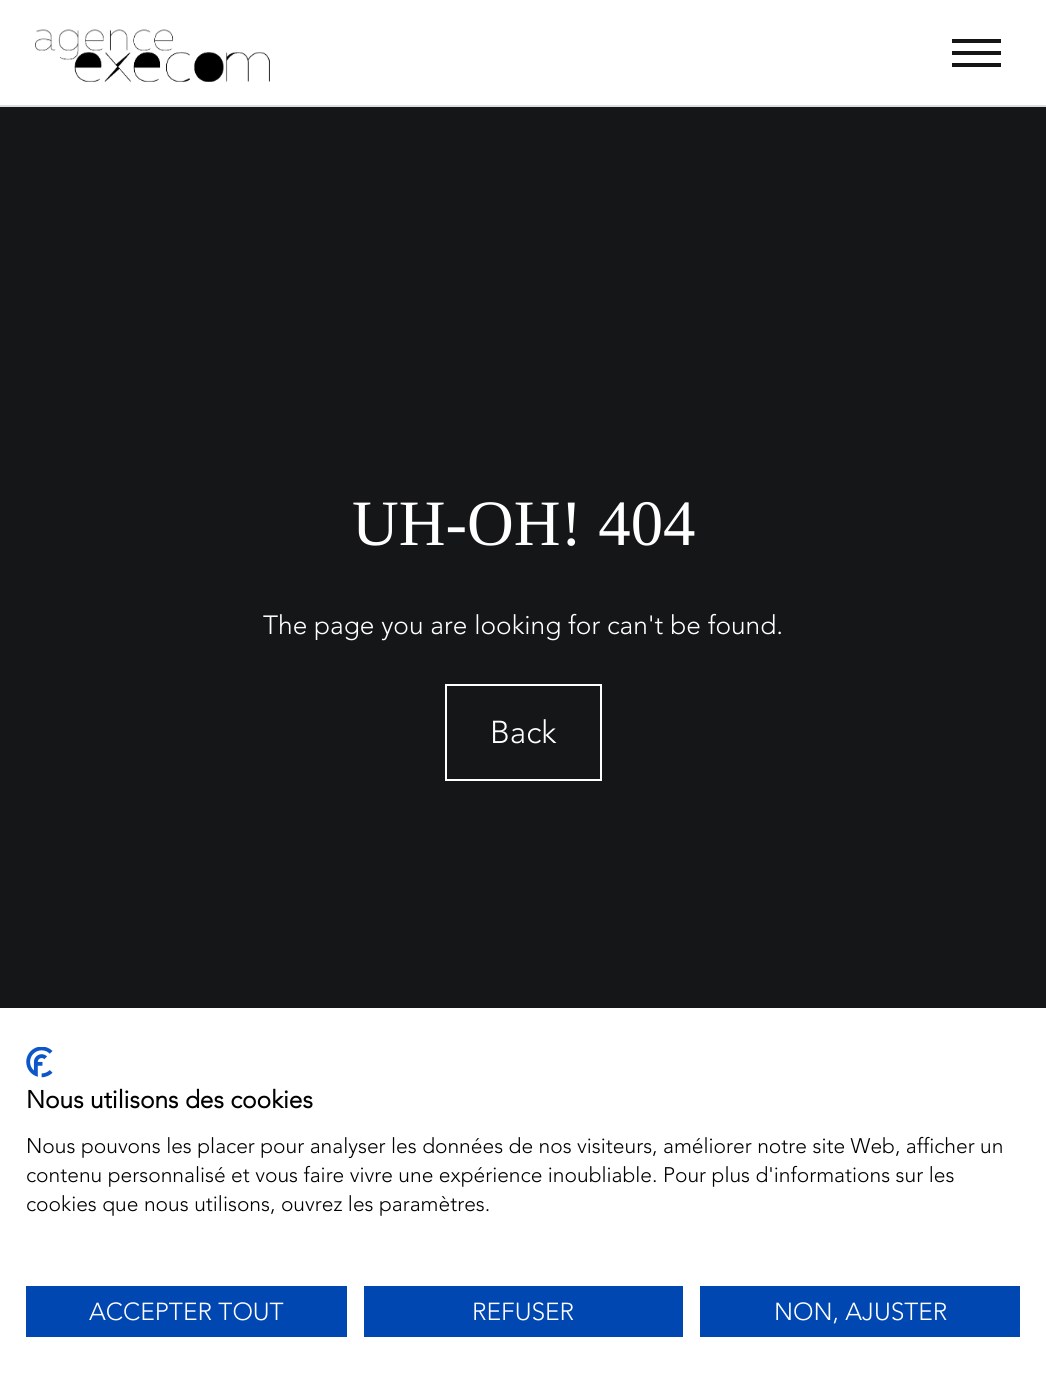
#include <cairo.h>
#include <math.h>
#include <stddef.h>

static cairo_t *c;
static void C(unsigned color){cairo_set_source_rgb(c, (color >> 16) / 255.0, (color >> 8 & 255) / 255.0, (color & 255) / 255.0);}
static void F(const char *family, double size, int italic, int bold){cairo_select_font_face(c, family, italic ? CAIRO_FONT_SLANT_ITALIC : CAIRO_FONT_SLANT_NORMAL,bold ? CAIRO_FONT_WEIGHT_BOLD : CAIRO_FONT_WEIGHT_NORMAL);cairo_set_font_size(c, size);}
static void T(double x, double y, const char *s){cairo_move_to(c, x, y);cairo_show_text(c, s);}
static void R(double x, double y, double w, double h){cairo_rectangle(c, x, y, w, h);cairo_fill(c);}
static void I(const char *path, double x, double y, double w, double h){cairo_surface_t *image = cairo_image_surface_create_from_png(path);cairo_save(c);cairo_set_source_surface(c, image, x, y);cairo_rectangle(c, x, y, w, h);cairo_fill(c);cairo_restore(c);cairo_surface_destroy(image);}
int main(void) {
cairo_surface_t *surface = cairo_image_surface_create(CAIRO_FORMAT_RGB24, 1046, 1383);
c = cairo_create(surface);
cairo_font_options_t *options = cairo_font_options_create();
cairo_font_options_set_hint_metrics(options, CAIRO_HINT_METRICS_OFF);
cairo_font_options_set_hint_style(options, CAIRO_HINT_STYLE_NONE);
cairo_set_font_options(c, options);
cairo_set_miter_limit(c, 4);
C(0x141618);
cairo_paint(c);
C(0xffffff);
R(0,0,1046,105);
C(0xdddddd);
R(0,105,1046,2);
I("1.png",35,29,235,53);
C(0x151515);
R(952,51,49,4);
R(952,39,49,4);
R(952,63,49,4);
F("Liberation Serif",64.75,0,0);
C(0xffffff);
T(352,545,"UH-OH! 404");
F("Avenir Light",26.25,0,0);
T(263,634,"The page you are looking for can't be found.");
cairo_rectangle(c,446,685,155,95);
cairo_stroke(c);
F("Avenir Light",31.5,0,0);
T(490,743,"Back");
R(0,1008,1046,375);
I("2.png",26,1047,27,31);
F("Avenir",24.5,0,1);
C(0x000000);
T(26,1108,"Nous utilisons des cookies");
F("Avenir Light",21,0,0);
T(26,1153,"Nous pouvons les placer pour analyser les données de nos visiteurs, améliorer notre site Web, afficher un");
T(26,1182,"contenu personnalisé et vous faire vivre une expérience inoubliable. Pour plus d'informations sur les");
T(26,1211,"cookies que nous utilisons, ouvrez les paramètres.");
C(0x0047b2);
R(26,1286,321,51);
F("Avenir Light",24.5,0,0);
C(0xffffff);
T(89,1320,"ACCEPTER TOUT");
C(0x0047b2);
R(364,1286,319,51);
C(0xffffff);
T(472,1320,"REFUSER");
C(0x0047b2);
R(700,1286,320,51);
C(0xffffff);
T(774,1320,"NON, AJUSTER");
cairo_surface_write_to_png(surface, "o.png");
cairo_font_options_destroy(options);
cairo_destroy(c);
cairo_surface_destroy(surface);
return 0;
}
